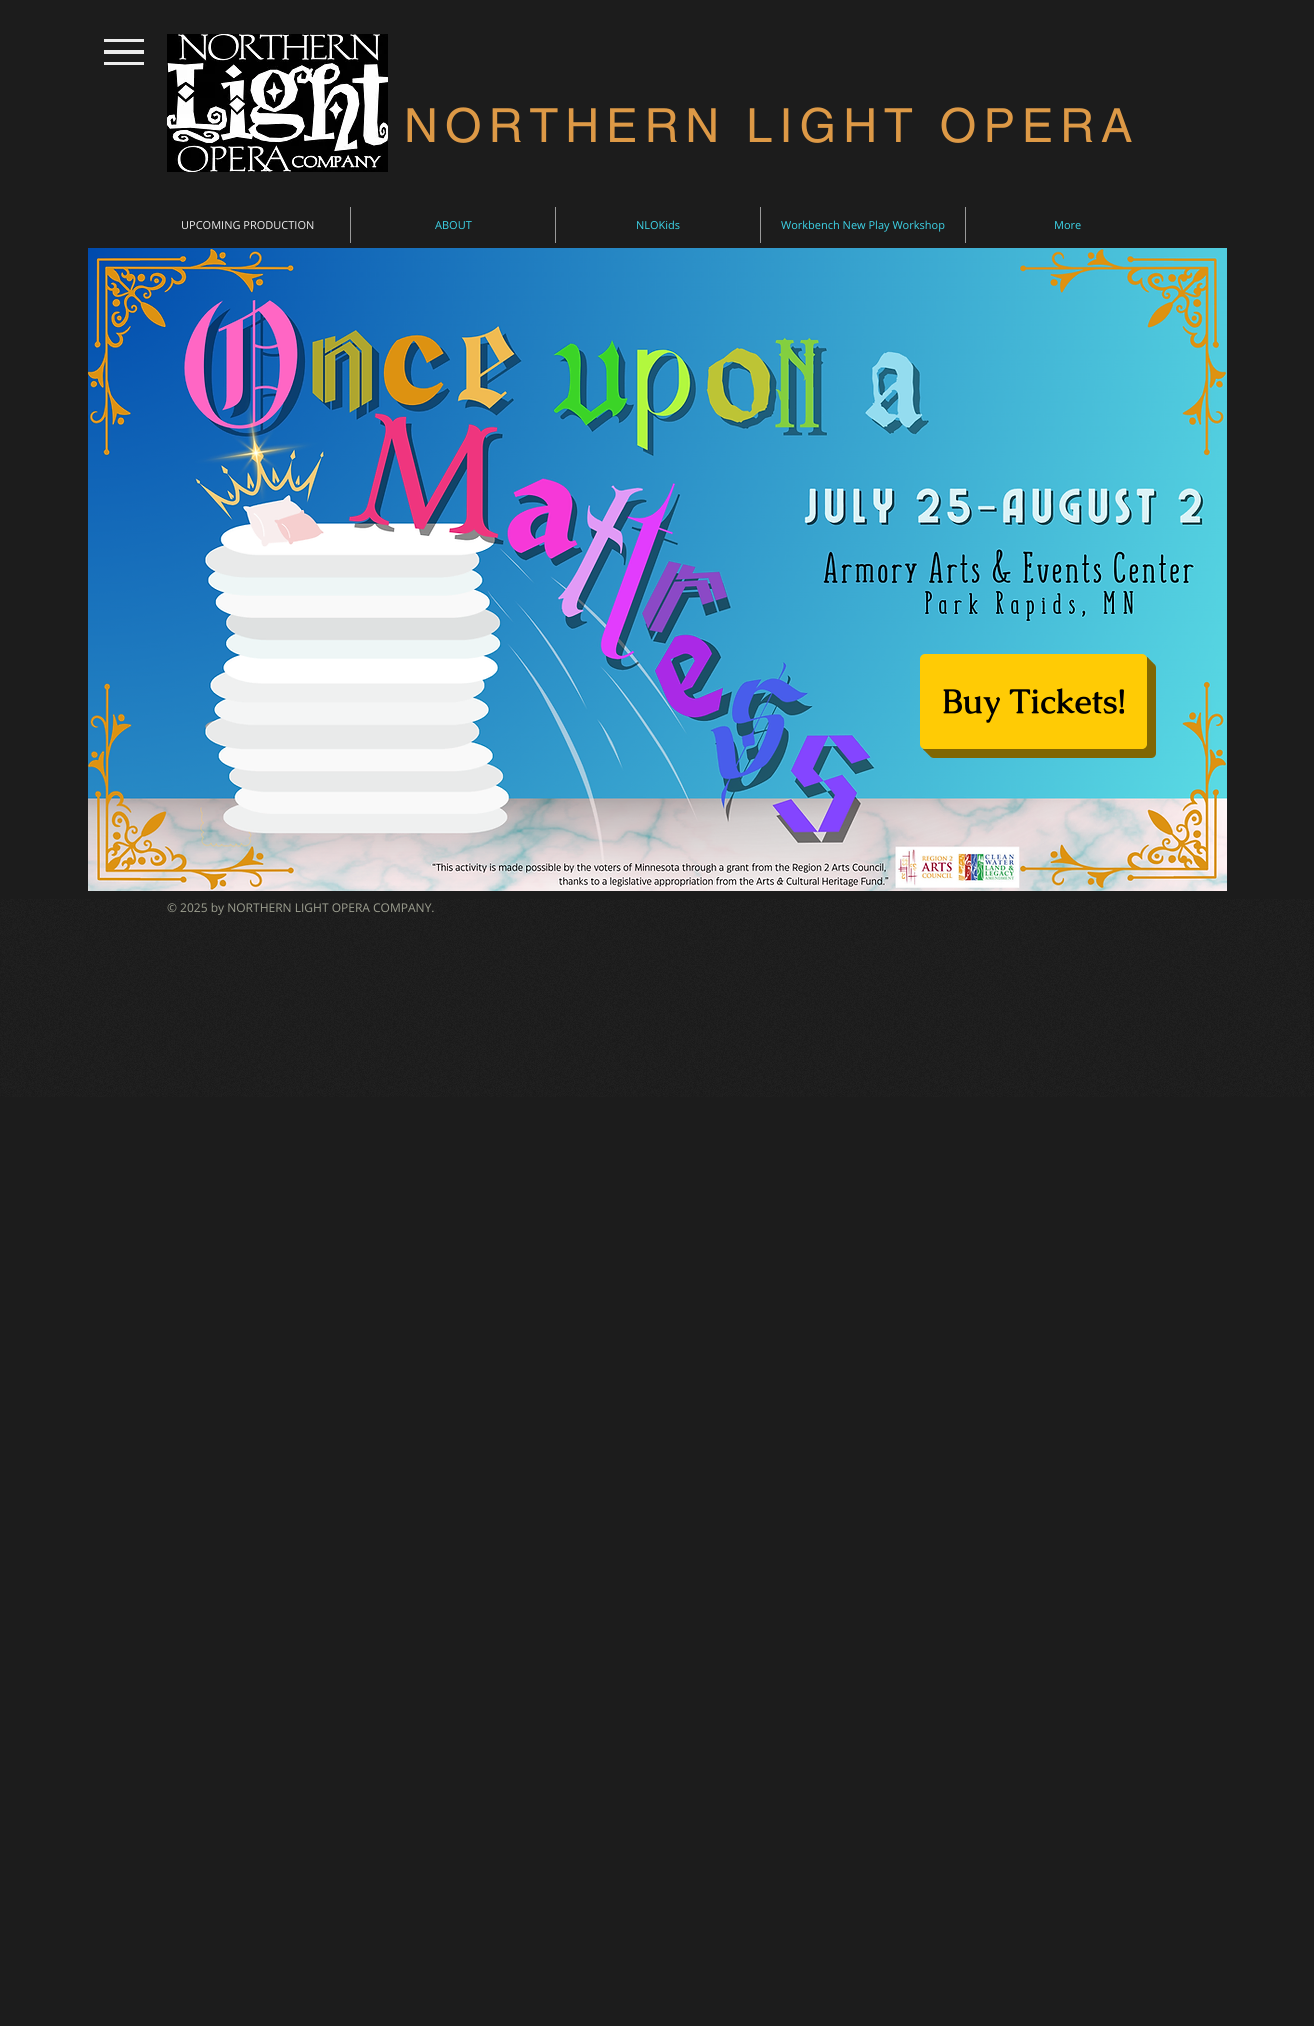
#include <cairo.h>
#include <math.h>
#include <stddef.h>

static cairo_t *c;
static void C(unsigned color){cairo_set_source_rgb(c, (color >> 16) / 255.0, (color >> 8 & 255) / 255.0, (color & 255) / 255.0);}
static void F(const char *family, double size, int italic, int bold){cairo_select_font_face(c, family, italic ? CAIRO_FONT_SLANT_ITALIC : CAIRO_FONT_SLANT_NORMAL,bold ? CAIRO_FONT_WEIGHT_BOLD : CAIRO_FONT_WEIGHT_NORMAL);cairo_set_font_size(c, size);}
static void T(double x, double y, const char *s){cairo_move_to(c, x, y);cairo_show_text(c, s);}
static void L(double x, double y, const char *s, double letter, double word){cairo_move_to(c, x, y);while (*s) {char ch[5] = {0};int n = 0;do ch[n++] = *s++; while ((*s & 0xC0) == 0x80);cairo_show_text(c, ch);cairo_rel_move_to(c, letter + word * (*ch == ' '), 0);}}
static void R(double x, double y, double w, double h){cairo_rectangle(c, x, y, w, h);cairo_fill(c);}
static void Q(double x, double y, double w, double h, double r){cairo_new_sub_path(c);cairo_arc(c, x + w - r, y + h - r, r, 0, M_PI / 2);cairo_arc(c, x + r, y + h - r, r, M_PI / 2, M_PI);cairo_arc(c, x + r, y + r, r, M_PI, 1.5 * M_PI);cairo_arc(c, x + w - r, y + r, r, 1.5 * M_PI, 2 * M_PI);cairo_close_path(c);}
static void I(const char *path, double x, double y, double w, double h){cairo_surface_t *image = cairo_image_surface_create_from_png(path);cairo_save(c);cairo_set_source_surface(c, image, x, y);cairo_rectangle(c, x, y, w, h);cairo_fill(c);cairo_restore(c);cairo_surface_destroy(image);}
int main(void) {
cairo_surface_t *surface = cairo_image_surface_create(CAIRO_FORMAT_RGB24, 1314, 2026);
c = cairo_create(surface);
cairo_font_options_t *options = cairo_font_options_create();
cairo_font_options_set_hint_metrics(options, CAIRO_HINT_METRICS_OFF);
cairo_font_options_set_hint_style(options, CAIRO_HINT_STYLE_NONE);
cairo_set_font_options(c, options);
cairo_set_miter_limit(c, 4);
C(0x1c1c1c);
cairo_paint(c);
C(0xececec);
R(104,62,40,3);
R(104,39,40,3);
R(104,50,40,4);
I("1.png",167,34,221,138);
F("helvetica",47,0,0);
C(0xdd9946);
L(404,142,"NORTHERN LIGHT OPERA",7,0);
F("Open Sans",11,0,0);
C(0xececec);
T(181,229,"UPCOMING PRODUCTION");
C(0x999999);
R(350,207,1,36);
C(0x3dd5e9);
T(435,229,"ABOUT");
C(0x999999);
R(555,207,1,36);
C(0x3dd5e9);
T(636,229,"NLOKids");
C(0x999999);
R(760,207,1,36);
C(0x3dd5e9);
T(781,229,"Workbench New Play Workshop");
C(0x999999);
R(965,207,1,36);
C(0x3dd5e9);
T(1054,229,"More");
I("2.png",88,248,1139,643);
C(0x806603);
cairo_new_path(c);
cairo_move_to(c,929,749);
cairo_line_to(c,929,753);
cairo_curve_to(c,929,756,931,758,934,758);
cairo_line_to(c,1151,758);
cairo_curve_to(c,1154,758,1156,756,1156,753);
cairo_line_to(c,1156,668);
cairo_curve_to(c,1156,665,1154,663,1151,663);
cairo_line_to(c,1147,663);
cairo_line_to(c,1147,744);
cairo_curve_to(c,1147,747,1145,749,1142,749);
cairo_close_path(c);
cairo_fill(c);
cairo_new_path(c);
cairo_move_to(c,927,749);
cairo_line_to(c,927,751);
cairo_curve_to(c,927,754,929,756,932,756);
cairo_line_to(c,1149,756);
cairo_curve_to(c,1152,756,1154,754,1154,751);
cairo_line_to(c,1154,666);
cairo_curve_to(c,1154,663,1152,661,1149,661);
cairo_line_to(c,1147,661);
cairo_line_to(c,1147,744);
cairo_curve_to(c,1147,747,1145,749,1142,749);
cairo_close_path(c);
cairo_fill(c);
cairo_new_path(c);
cairo_move_to(c,925,749);
cairo_curve_to(c,925,752,927,754,930,754);
cairo_line_to(c,1147,754);
cairo_curve_to(c,1150,754,1152,752,1152,749);
cairo_line_to(c,1152,664);
cairo_curve_to(c,1152,661,1150,659,1147,659);
cairo_line_to(c,1147,744);
cairo_curve_to(c,1147,747,1145,749,1142,749);
cairo_close_path(c);
cairo_fill(c);
cairo_new_path(c);
cairo_move_to(c,923,749);
cairo_curve_to(c,924,751,926,752,928,752);
cairo_line_to(c,1145,752);
cairo_curve_to(c,1148,752,1150,750,1150,747);
cairo_line_to(c,1150,662);
cairo_curve_to(c,1150,660,1149,658,1147,657);
cairo_line_to(c,1147,730);
cairo_curve_to(c,1147,732,1150,749,1142,749);
cairo_close_path(c);
cairo_fill(c);
cairo_new_path(c);
cairo_move_to(c,922,748);
cairo_curve_to(c,923,749,924,750,926,750);
cairo_line_to(c,1143,750);
cairo_curve_to(c,1146,750,1148,748,1148,745);
cairo_line_to(c,1148,660);
cairo_curve_to(c,1148,658,1147,657,1146,656);
cairo_curve_to(c,1147,657,1147,658,1147,659);
cairo_line_to(c,1147,744);
cairo_curve_to(c,1147,747,1145,749,1142,749);
cairo_line_to(c,925,749);
cairo_curve_to(c,924,749,923,749,922,748);
cairo_close_path(c);
cairo_fill(c);
C(0xffcb05);
Q(920,654,227,95,5);
cairo_fill(c);
F("Caudex",34,0,1);
C(0x000000);
T(942,713,"Buy Tickets!");
I("3.png",0,899,1314,198);
F("Open Sans",12,0,0);
C(0x9c9e8f);
T(167,912,"© 2025 by NORTHERN LIGHT OPERA COMPANY.");
cairo_surface_write_to_png(surface, "o.png");
cairo_font_options_destroy(options);
cairo_destroy(c);
cairo_surface_destroy(surface);
return 0;
}
